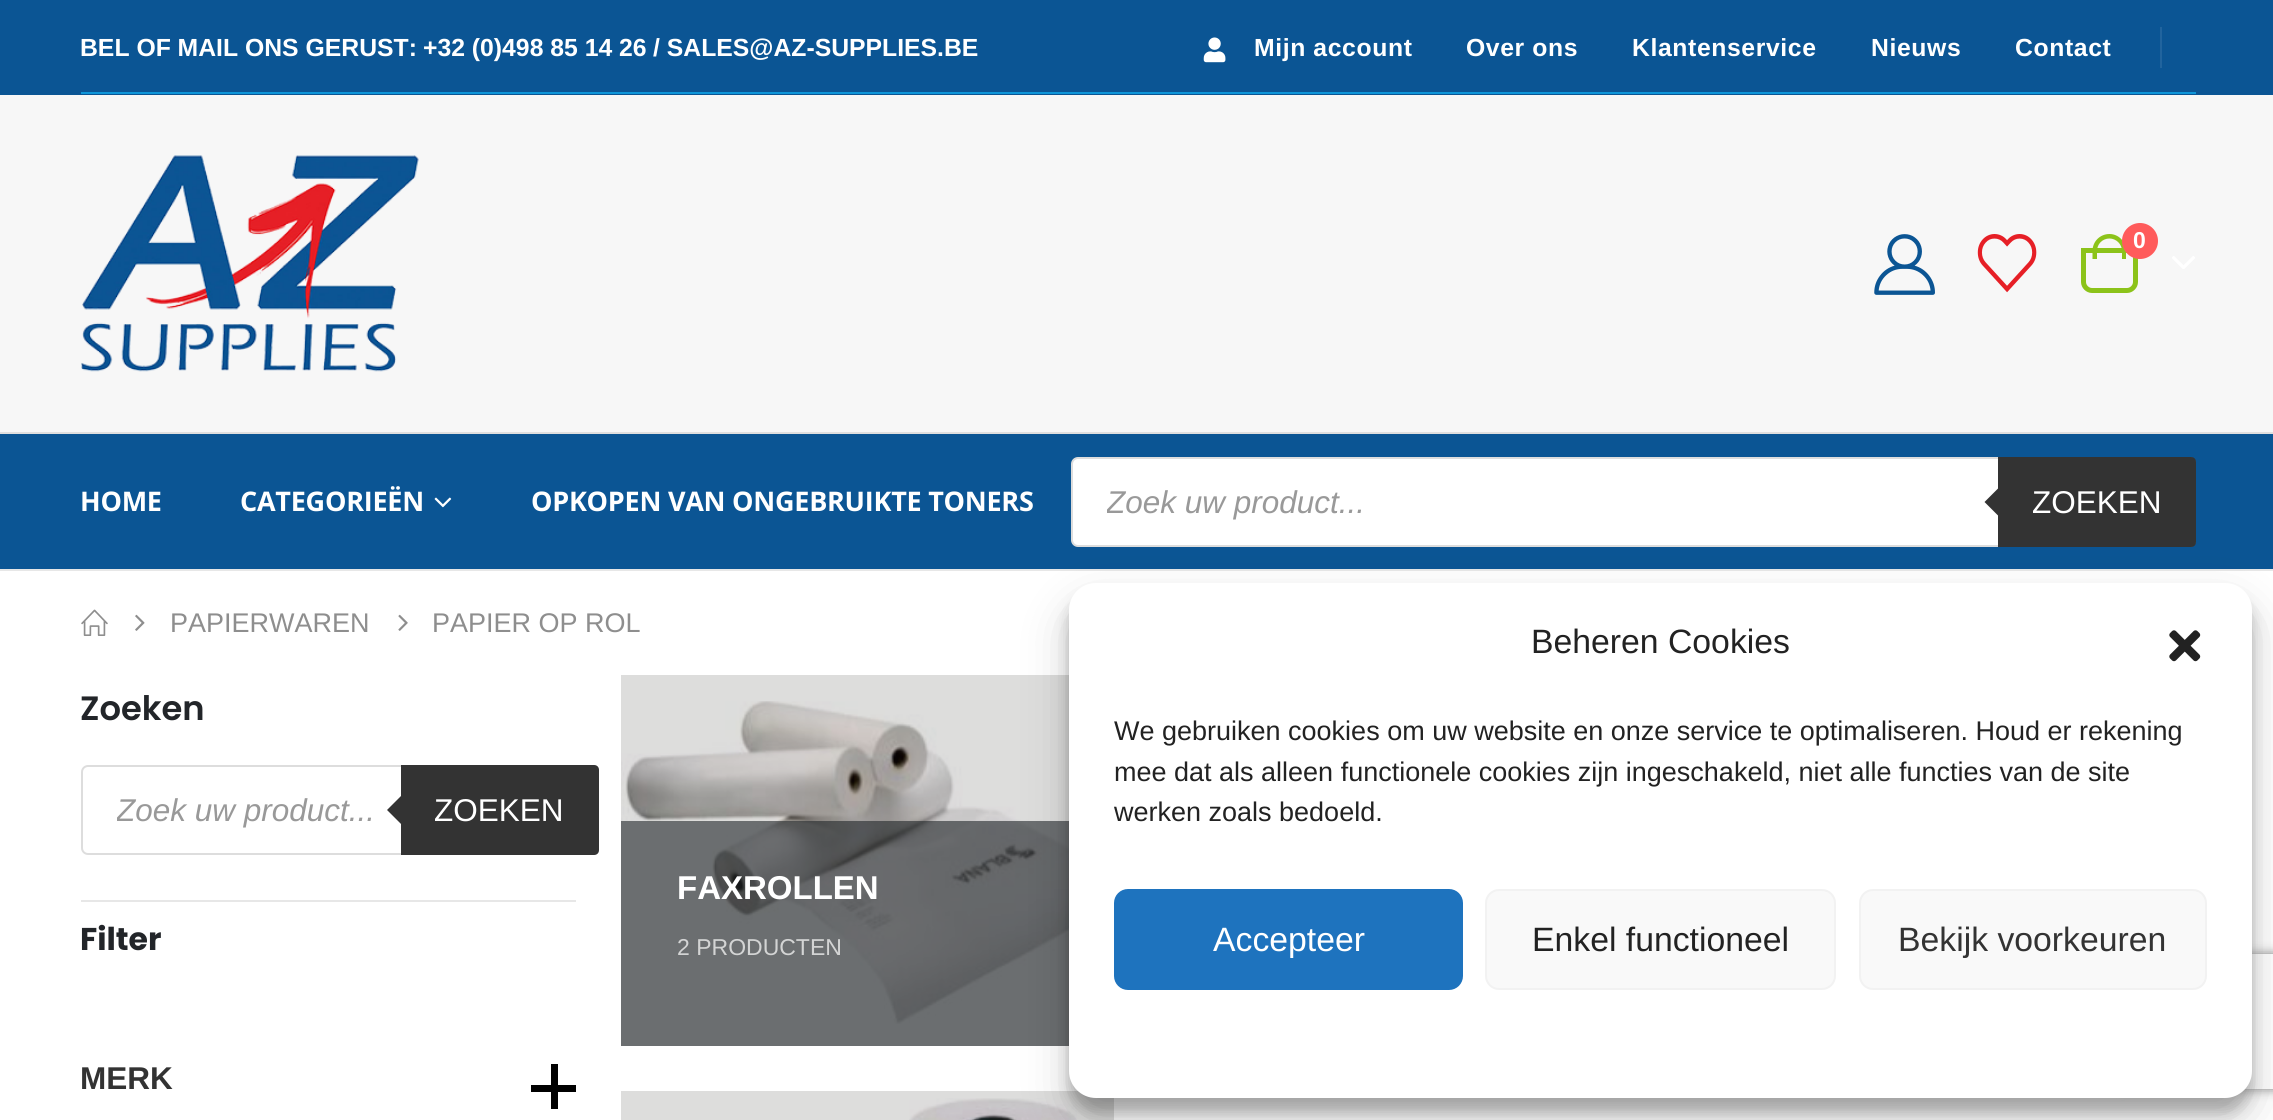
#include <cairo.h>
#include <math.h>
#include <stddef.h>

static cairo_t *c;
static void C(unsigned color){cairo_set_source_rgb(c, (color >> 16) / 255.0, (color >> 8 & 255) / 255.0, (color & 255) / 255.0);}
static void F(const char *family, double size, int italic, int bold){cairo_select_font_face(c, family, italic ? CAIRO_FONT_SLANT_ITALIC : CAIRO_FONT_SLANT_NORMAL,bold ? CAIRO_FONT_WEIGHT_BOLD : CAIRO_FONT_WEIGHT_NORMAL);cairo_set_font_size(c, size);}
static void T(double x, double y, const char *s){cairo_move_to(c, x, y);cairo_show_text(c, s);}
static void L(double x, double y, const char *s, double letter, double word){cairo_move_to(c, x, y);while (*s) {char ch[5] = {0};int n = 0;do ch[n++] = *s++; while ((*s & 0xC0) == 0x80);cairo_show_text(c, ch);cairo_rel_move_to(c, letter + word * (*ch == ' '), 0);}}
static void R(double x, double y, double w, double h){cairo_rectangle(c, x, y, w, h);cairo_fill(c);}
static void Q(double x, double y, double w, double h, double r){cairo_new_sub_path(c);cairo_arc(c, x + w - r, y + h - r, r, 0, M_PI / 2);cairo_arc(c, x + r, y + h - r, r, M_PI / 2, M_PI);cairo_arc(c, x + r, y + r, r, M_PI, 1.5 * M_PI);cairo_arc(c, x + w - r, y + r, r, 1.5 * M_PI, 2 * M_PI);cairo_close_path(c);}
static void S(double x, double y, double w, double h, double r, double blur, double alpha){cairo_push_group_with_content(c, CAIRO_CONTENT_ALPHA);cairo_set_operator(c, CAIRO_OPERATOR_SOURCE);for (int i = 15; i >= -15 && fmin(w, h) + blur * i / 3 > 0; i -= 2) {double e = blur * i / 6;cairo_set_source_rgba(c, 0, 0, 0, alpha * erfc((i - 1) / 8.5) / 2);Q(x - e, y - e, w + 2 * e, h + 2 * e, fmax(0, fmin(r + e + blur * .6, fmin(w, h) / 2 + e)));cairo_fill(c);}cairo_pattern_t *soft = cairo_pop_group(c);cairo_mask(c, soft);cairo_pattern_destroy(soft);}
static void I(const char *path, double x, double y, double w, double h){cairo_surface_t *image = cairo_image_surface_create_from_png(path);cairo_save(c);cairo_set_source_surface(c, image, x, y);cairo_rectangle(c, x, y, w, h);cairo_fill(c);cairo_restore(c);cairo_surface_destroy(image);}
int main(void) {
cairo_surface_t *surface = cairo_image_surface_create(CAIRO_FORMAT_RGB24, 2273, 1120);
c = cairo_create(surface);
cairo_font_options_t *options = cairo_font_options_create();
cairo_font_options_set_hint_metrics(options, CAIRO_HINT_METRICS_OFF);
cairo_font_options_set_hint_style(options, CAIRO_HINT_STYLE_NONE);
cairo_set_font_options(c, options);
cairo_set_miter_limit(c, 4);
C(0xffffff);
cairo_paint(c);
C(0xdddddc);
R(621,1091,493,29);
R(621,675,448,371);
C(0xe7e7e7);
R(0,569,2273,2);
C(0x0b5594);
R(0,0,2273,95);
F("Liberation Sans",24.75,0,1);
C(0xffffff);
T(80,56,"BEL OF MAIL ONS GERUST:");
T(423,56,"+32 (0)498 85 14 26");
T(653,56,"/ SALES@AZ-SUPPLIES.BE");
I("1.png",1203,37,23,26);
L(1254,56,"Mijn account",.6,0);
L(1466,56,"Over ons",.6,0);
L(1632,56,"Klantenservice",.6,0);
L(1871,56,"Nieuws",.6,0);
L(2015,56,"Contact",.6,0);
C(0x21649e);
R(2160,27,2,41);
C(0x0e95d8);
R(81,92,2115,2);
C(0xf7f7f7);
R(0,95,2273,337);
C(0xe0dfdf);
R(0,432,2273,2);
I("2.png",81,155,338,217);
I("3.png",1874,234,61,61);
I("4.png",1977,234,60,59);
cairo_new_path(c);
cairo_move_to(c,2083.5,250.5);
cairo_line_to(c,2135.5,250.5);
cairo_line_to(c,2135.5,282);
cairo_curve_to(c,2135.5,286.5,2131.5,290.5,2127,290.5);
cairo_line_to(c,2092,290.5);
cairo_curve_to(c,2087.5,290.5,2083.5,286.5,2083.5,282);
cairo_close_path(c);
C(0x8cc31a);
cairo_set_line_width(c,5);
cairo_stroke(c);
cairo_set_fill_rule(c,CAIRO_FILL_RULE_EVEN_ODD);
cairo_new_path(c);
cairo_move_to(c,2109.5,234);
cairo_curve_to(c,2118.5,234,2126,241.5,2126,251);
cairo_line_to(c,2126,259);
cairo_line_to(c,2092.5,259);
cairo_line_to(c,2092.5,251);
cairo_curve_to(c,2092.5,241.5,2100,234,2109.5,234);
cairo_close_path(c);
cairo_move_to(c,2109.5,238.5);
cairo_curve_to(c,2116,238.5,2122,244,2122,251);
cairo_line_to(c,2122,259);
cairo_line_to(c,2097,259);
cairo_line_to(c,2097,251);
cairo_curve_to(c,2097,244,2102.5,238.5,2109.5,238.5);
cairo_close_path(c);
cairo_fill(c);
C(0xff5b5b);
cairo_arc(c,2140,241,18,0,2 * M_PI);
cairo_fill(c);
F("Liberation Sans",23,0,1);
C(0xffffff);
T(2133,248,"0");
I("5.png",2172,256,23,13);
C(0x0b5594);
R(0,434,2273,135);
F("Open Sans",27,0,1);
C(0xffffff);
L(80,511,"HOME",-.25,0);
L(240,511,"CATEGORIEËN",-.25,0);
I("6.png",434,497,18,11);
L(531,511,"OPKOPEN VAN ONGEBRUIKTE TONERS",-.25,0);
Q(1072,458,1123,88,6);
cairo_fill_preserve(c);
C(0xdddddd);
cairo_set_line_width(c,2);
cairo_stroke(c);
cairo_save(c);
cairo_set_fill_rule(c,CAIRO_FILL_RULE_WINDING);
cairo_rectangle(c,1107,484,1053,36);
cairo_clip(c);
F("Liberation Sans",31.5,1,0);
C(0x999999);
T(1106,513,"Zoek uw product...");
cairo_restore(c);
C(0x333333);
cairo_new_path(c);
cairo_move_to(c,1998,457);
cairo_line_to(c,2191,457);
cairo_curve_to(c,2194,457,2196,459,2196,462);
cairo_line_to(c,2196,542);
cairo_curve_to(c,2196,545,2194,547,2191,547);
cairo_line_to(c,1998,547);
cairo_close_path(c);
cairo_fill(c);
cairo_set_fill_rule(c,CAIRO_FILL_RULE_WINDING);
cairo_new_path(c);
cairo_move_to(c,2002.5,484);
cairo_line_to(c,2002.5,520);
cairo_line_to(c,1984.5,502);
cairo_close_path(c);
cairo_fill(c);
F("Liberation Sans",31.5,0,0);
C(0xffffff);
T(2032,513,"ZOEKEN");
I("7.png",81,609,27,27);
I("8.png",135,614,10,17);
F("Liberation Sans",27,0,0);
C(0x8e8e8e);
T(170,632,"PAPIERWAREN");
I("9.png",398,614,10,17);
T(432,632,"PAPIER OP ROL");
C(0xe7e7e7);
R(81,900,495,2);
F("Poppins SemiBold",33.75,0,0);
C(0x222529);
T(80,720,"Zoeken");
Q(82,766,516,88,6);
C(0xdddddd);
cairo_stroke(c);
cairo_save(c);
cairo_rectangle(c,117,792,446,36);
cairo_clip(c);
F("Liberation Sans",31.5,1,0);
C(0x999999);
T(116,821,"Zoek uw product...");
cairo_restore(c);
C(0x333333);
cairo_new_path(c);
cairo_move_to(c,401,765);
cairo_line_to(c,594,765);
cairo_curve_to(c,597,765,599,767,599,770);
cairo_line_to(c,599,850);
cairo_curve_to(c,599,853,597,855,594,855);
cairo_line_to(c,401,855);
cairo_close_path(c);
cairo_fill(c);
cairo_new_path(c);
cairo_move_to(c,405,792);
cairo_line_to(c,405,828);
cairo_line_to(c,387,810);
cairo_close_path(c);
cairo_fill(c);
F("Liberation Sans",31.5,0,0);
C(0xffffff);
T(434,821,"ZOEKEN");
F("Poppins",31.5,0,1);
C(0x222529);
T(80,950,"Filter");
F("Liberation Sans",31.5,0,1);
C(0x333333);
T(80,1089,"MERK");
C(0x000000);
R(531,1085,45,7);
R(551,1064,7,45);
I("10.png",621,701,448,323);
cairo_set_source_rgba(c,0.129,0.145,0.161,0.6);
R(621,821,448,225);
F("Liberation Sans",33,0,1);
C(0xffffff);
T(677,899,"FAXROLLEN");
F("Liberation Sans",23,0,0);
C(0xd3d4d4);
T(677,955,"2 PRODUCTEN");
I("11.png",909,1098,168,22);
C(0x000000);
S(1069,596,1183,516,27,7,.23);
S(1069,605,1183,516,27,22.5,.19);
cairo_save(c);
cairo_set_fill_rule(c,CAIRO_FILL_RULE_EVEN_ODD);
cairo_new_path(c);
cairo_move_to(c,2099,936);
cairo_line_to(c,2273,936);
cairo_line_to(c,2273,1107);
cairo_line_to(c,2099,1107);
cairo_close_path(c);
cairo_move_to(c,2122,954);
cairo_line_to(c,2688,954);
cairo_curve_to(c,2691,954,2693,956,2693,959);
cairo_line_to(c,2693,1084);
cairo_curve_to(c,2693,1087,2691,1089,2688,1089);
cairo_line_to(c,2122,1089);
cairo_curve_to(c,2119,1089,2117,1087,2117,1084);
cairo_line_to(c,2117,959);
cairo_curve_to(c,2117,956,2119,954,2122,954);
cairo_close_path(c);
cairo_clip(c);
C(0x808080);
S(2117,954,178,135,5,5.5,1);
cairo_restore(c);
C(0xffffff);
Q(1069,583,1183,515,27);
cairo_fill(c);
F("Liberation Sans",33.75,0,0);
C(0x222222);
T(1531,653,"Beheren Cookies");
I("12.png",2169,630,32,32);
F("Liberation Sans",27,0,0);
T(1114,740,"We gebruiken cookies om uw website en onze service te optimaliseren. Houd er rekening");
T(1114,781,"mee dat als alleen functionele cookies zijn ingeschakeld, niet alle functies van de site");
T(1114,821,"werken zoals bedoeld.");
C(0x1e73be);
Q(1115,890,347,99,13);
cairo_fill_preserve(c);
cairo_stroke(c);
F("Liberation Sans",33.75,0,0);
C(0xffffff);
T(1213,951,"Accepteer");
C(0xf9f9f9);
Q(1486,890,349,99,13);
cairo_fill_preserve(c);
C(0xf2f2f2);
cairo_stroke(c);
C(0x222222);
T(1532,951,"Enkel functioneel");
C(0xf9f9f9);
Q(1860,890,346,99,13);
cairo_fill_preserve(c);
C(0xf2f2f2);
cairo_stroke(c);
C(0x333333);
T(1898,951,"Bekijk voorkeuren");
cairo_surface_write_to_png(surface, "o.png");
cairo_font_options_destroy(options);
cairo_destroy(c);
cairo_surface_destroy(surface);
return 0;
}
